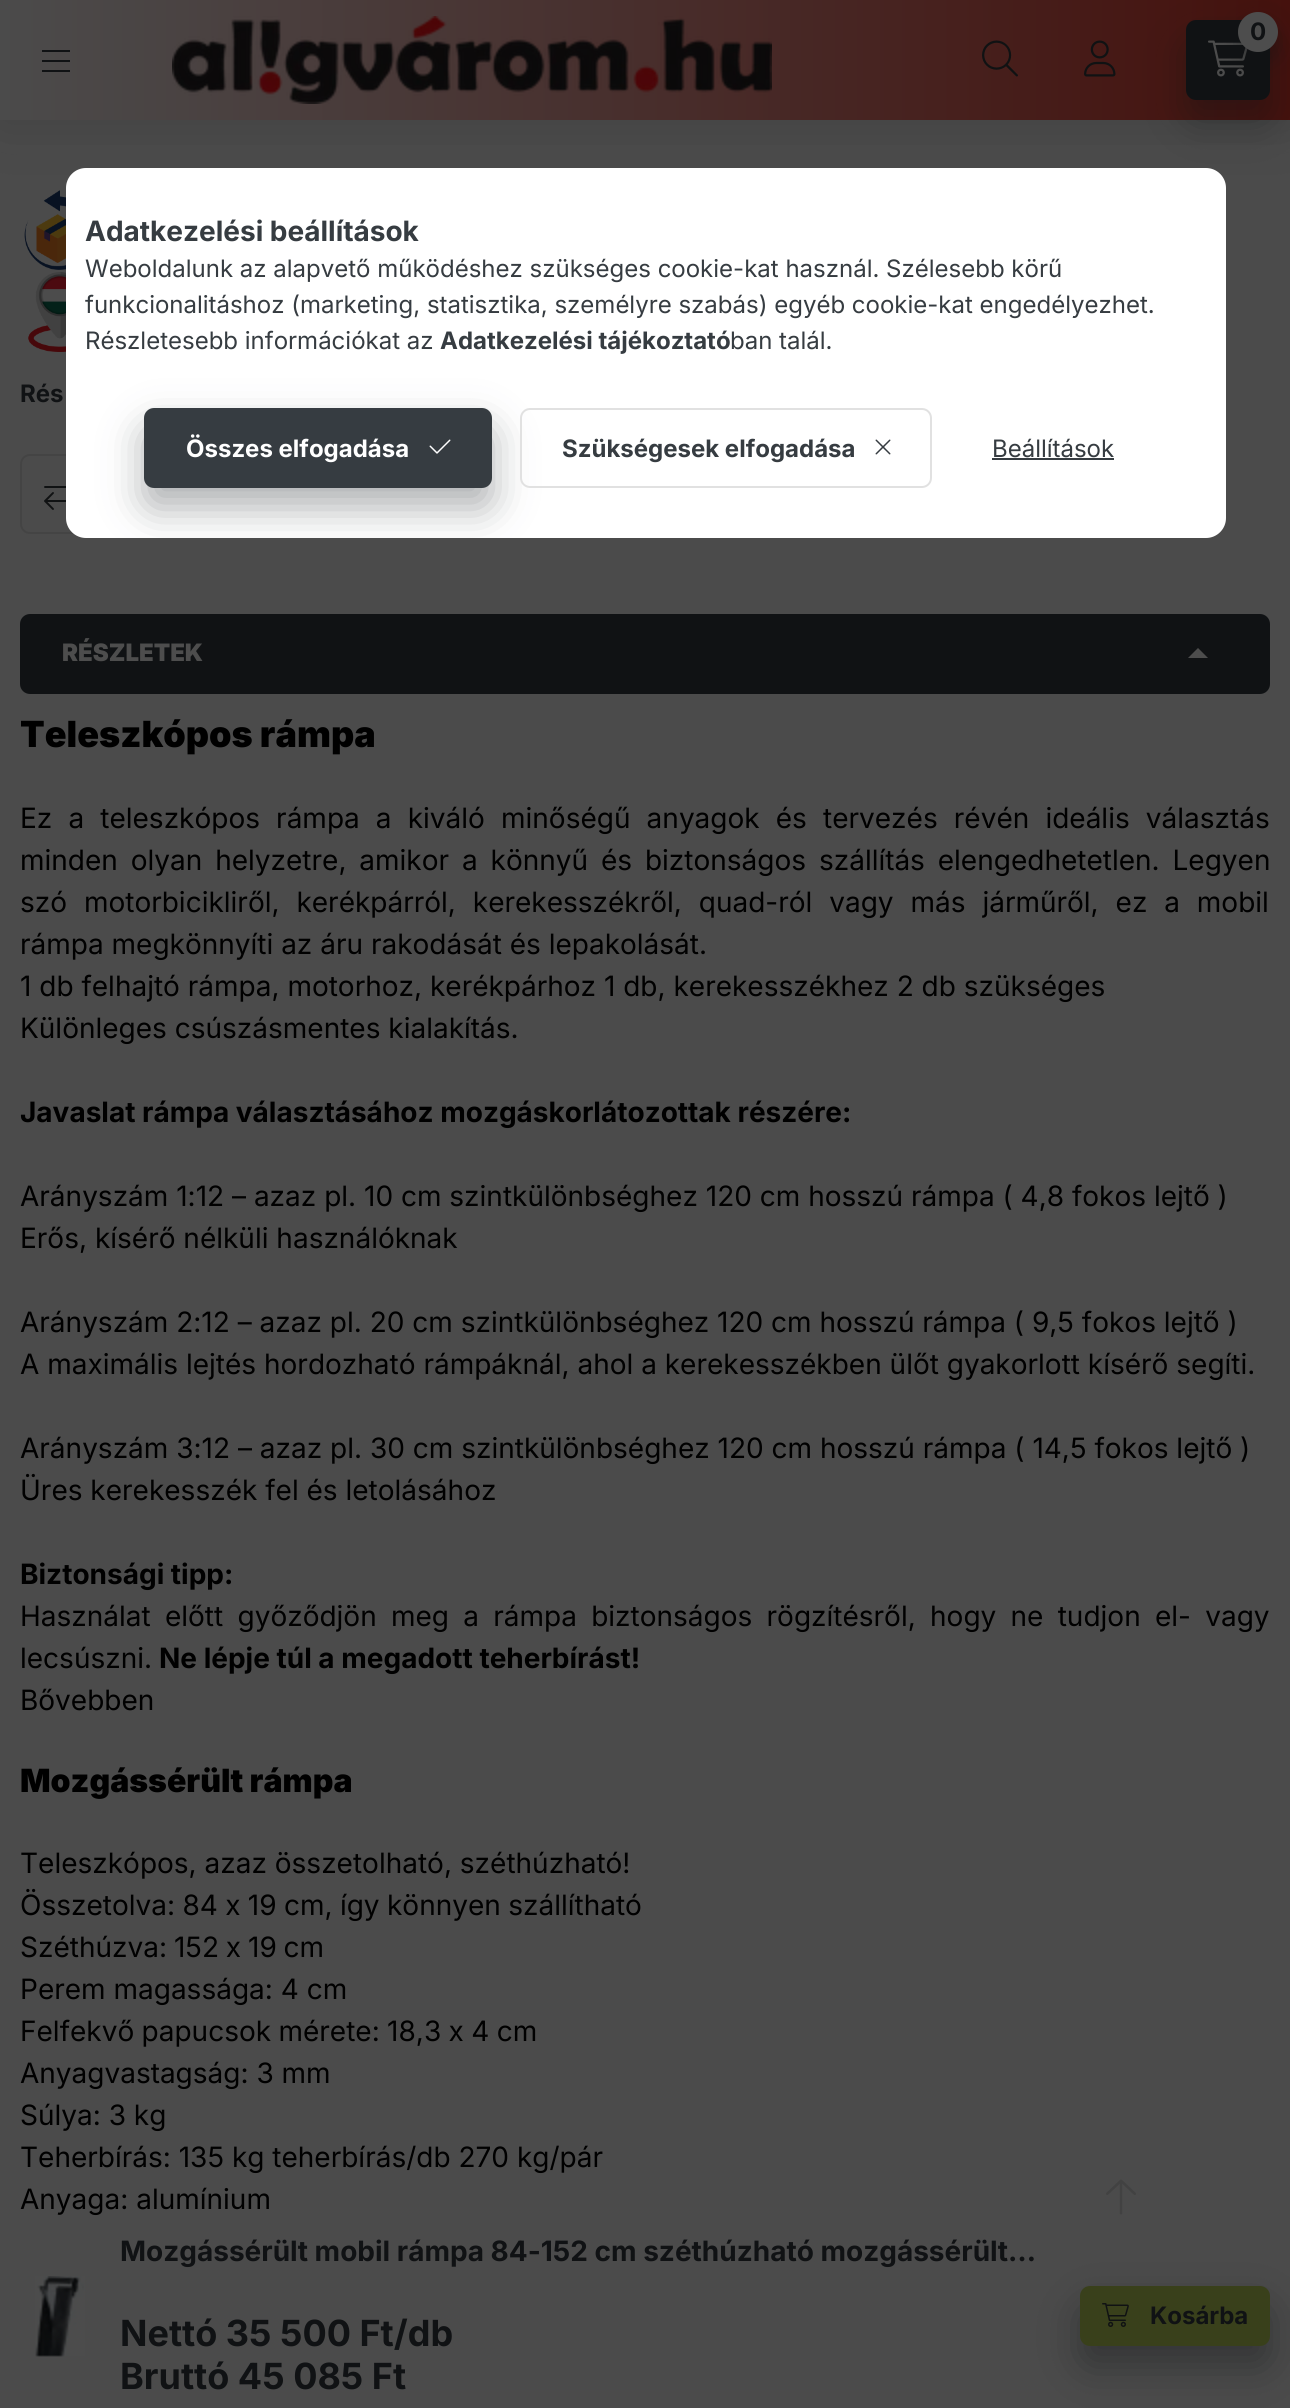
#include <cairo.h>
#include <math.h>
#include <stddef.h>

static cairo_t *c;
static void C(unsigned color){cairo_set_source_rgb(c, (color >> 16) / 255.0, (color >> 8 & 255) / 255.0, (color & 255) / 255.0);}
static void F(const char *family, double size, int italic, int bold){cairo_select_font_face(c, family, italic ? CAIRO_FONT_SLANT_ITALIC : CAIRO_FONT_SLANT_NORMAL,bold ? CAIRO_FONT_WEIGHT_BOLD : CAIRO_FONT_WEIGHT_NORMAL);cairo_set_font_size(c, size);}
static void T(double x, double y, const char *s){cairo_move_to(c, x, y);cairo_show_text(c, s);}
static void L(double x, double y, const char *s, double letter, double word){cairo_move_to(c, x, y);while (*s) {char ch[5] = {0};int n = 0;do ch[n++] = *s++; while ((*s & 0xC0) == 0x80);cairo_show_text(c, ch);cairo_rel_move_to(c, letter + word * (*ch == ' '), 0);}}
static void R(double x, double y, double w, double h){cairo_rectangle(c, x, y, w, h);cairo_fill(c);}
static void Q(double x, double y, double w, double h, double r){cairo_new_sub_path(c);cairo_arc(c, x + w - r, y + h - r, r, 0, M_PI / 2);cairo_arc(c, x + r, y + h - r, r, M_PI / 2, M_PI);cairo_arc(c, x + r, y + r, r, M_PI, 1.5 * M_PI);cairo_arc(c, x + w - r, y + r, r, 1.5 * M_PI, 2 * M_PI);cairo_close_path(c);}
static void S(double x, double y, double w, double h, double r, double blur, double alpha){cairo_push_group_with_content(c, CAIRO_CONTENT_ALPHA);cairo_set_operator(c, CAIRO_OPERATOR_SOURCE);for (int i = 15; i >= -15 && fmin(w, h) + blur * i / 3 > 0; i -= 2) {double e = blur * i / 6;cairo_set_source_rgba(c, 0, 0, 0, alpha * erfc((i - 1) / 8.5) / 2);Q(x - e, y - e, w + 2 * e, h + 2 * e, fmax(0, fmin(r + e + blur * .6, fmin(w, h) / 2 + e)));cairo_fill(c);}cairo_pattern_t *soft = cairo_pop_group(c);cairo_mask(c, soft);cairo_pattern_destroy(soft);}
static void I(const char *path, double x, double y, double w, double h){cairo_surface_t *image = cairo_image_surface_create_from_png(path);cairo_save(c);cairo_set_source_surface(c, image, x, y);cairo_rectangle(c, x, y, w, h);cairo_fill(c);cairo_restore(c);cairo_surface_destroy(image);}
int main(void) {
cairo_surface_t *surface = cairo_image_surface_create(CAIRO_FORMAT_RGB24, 1290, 2408);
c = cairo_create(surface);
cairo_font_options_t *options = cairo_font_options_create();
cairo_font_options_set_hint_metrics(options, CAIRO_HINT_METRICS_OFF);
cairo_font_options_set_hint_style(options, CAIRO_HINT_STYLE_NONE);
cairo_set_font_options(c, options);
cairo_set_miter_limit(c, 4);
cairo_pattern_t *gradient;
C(0x4b4b4b);
cairo_paint(c);
I("5.png",24,190,42,80);
C(0x101214);
S(0,0,1290,120,0,30,.2);
gradient = cairo_pattern_create_linear(0,1204,1290,1204);
cairo_pattern_add_color_stop_rgba(gradient,0,0.294,0.294,0.294,1);
cairo_pattern_add_color_stop_rgba(gradient,1,0.271,0.067,0.051,1);
cairo_set_source(c,gradient);
cairo_pattern_destroy(gradient);
R(0,0,1290,120);
C(0x101214);
R(42,50,28,2);
R(42,60,28,2);
R(42,70,28,2);
I("1.png",172,16,600,88);
C(0x101214);
S(1186,40,84,80,10,20,.4);
C(0x101214);
Q(1186,20,84,80,10);
cairo_fill(c);
I("2.png",1208,40,40,37);
C(0x101214);
S(1238,22,40,40,20,10,.4);
C(0x4d4d4d);
cairo_arc(c,1258,32,20,0,2 * M_PI);
cairo_fill(c);
F("Inter",24,0,1);
C(0x101214);
T(1250,40,"0");
I("3.png",982,40,36,37);
I("4.png",1084,40,32,37);
I("6.png",28,272,38,80);
T(20,402,"Rés");
Q(21,455,78,78,9);
C(0x444444);
cairo_stroke(c);
I("7.png",44,486,22,24);
C(0x101214);
Q(21,615,1248,78,9);
cairo_fill_preserve(c);
cairo_stroke(c);
F("Inter Black",24,0,0);
C(0x4d4d4d);
T(62,661,"RÉSZLETEK");
cairo_new_path(c);
cairo_move_to(c,1188,658);
cairo_line_to(c,1208,658);
cairo_line_to(c,1198,648);
cairo_close_path(c);
cairo_fill(c);
F("Inter Black",36,0,0);
C(0x000000);
T(20,747,"Teleszkópos rámpa");
F("Inter",28,0,0);
L(20,828,"Ez a teleszkópos rámpa a kiváló minőségű anyagok és tervezés révén ideális választás",0,8.25);
L(20,870,"minden olyan helyzetre, amikor a könnyű és biztonságos szállítás elengedhetetlen. Legyen",0,5);
L(20,912,"szó motorbicikliről, kerékpárról, kerekesszékről, quad-ról vagy más járműről, ez a mobil",0,9);
T(20,954,"rámpa megkönnyíti az áru rakodását és lepakolását.");
T(20,996,"1 db felhajtó rámpa, motorhoz, kerékpárhoz 1 db, kerekesszékhez 2 db szükséges");
T(20,1038,"Különleges csúszásmentes kialakítás.");
F("Inter",28,0,1);
T(20,1122,"Javaslat rámpa választásához mozgáskorlátozottak részére:");
F("Inter",28,0,0);
T(20,1206,"Arányszám 1:12 – azaz pl. 10 cm szintkülönbséghez 120 cm hosszú rámpa ( 4,8 fokos lejtő )");
T(20,1248,"Erős, kísérő nélküli használóknak");
T(20,1332,"Arányszám 2:12 – azaz pl. 20 cm szintkülönbséghez 120 cm hosszú rámpa ( 9,5 fokos lejtő )");
T(20,1374,"A maximális lejtés hordozható rámpáknál, ahol a kerekesszékben ülőt gyakorlott kísérő segíti.");
T(20,1458,"Arányszám 3:12 – azaz pl. 30 cm szintkülönbséghez 120 cm hosszú rámpa ( 14,5 fokos lejtő )");
T(20,1500,"Üres kerekesszék fel és letolásához");
F("Inter",28,0,1);
T(20,1584,"Biztonsági tipp:");
F("Inter",28,0,0);
L(20,1626,"Használat előtt győződjön meg a rámpa biztonságos rögzítésről, hogy ne tudjon el- vagy",0,6.4);
T(20,1668,"lecsúszni.");
F("Inter",28,0,1);
T(159,1668,"Ne lépje túl a megadott teherbírást!");
F("Inter",28,0,0);
T(20,1710,"Bővebben");
F("Inter Black",32,0,0);
T(20,1792,"Mozgássérült rámpa");
F("Inter",28,0,0);
T(20,1873,"Teleszkópos, azaz összetolható, széthúzható!");
L(20,1915,"Összetolva: 84 x 19 cm, így könnyen szállítható",0,-.5);
L(20,1957,"Széthúzva: 152 x 19 cm",0,-1);
T(20,1999,"Perem magassága: 4 cm");
L(20,2041,"Felfekvő papucsok mérete: 18,3 x 4 cm",0,-.5);
T(20,2083,"Anyagvastagság: 3 mm");
T(20,2125,"Súlya: 3 kg");
T(20,2167,"Teherbírás: 135 kg teherbírás/db 270 kg/pár");
T(20,2209,"Anyaga: alumínium");
I("8.png",35,2276,50,81);
F("Inter",28,0,1);
C(0x101214);
T(120,2261,"Mozgássérült mobil rámpa 84-152 cm széthúzható mozgássérült…");
F("Inter",36,0,1);
T(120,2346,"Nettó 35 500 Ft/db");
T(120,2389,"Bruttó 45 085 Ft");
C(0x101214);
S(1080,2306,190,60,10,20,.4);
C(0x39401b);
Q(1080,2286,190,60,10);
cairo_fill(c);
I("9.png",1102,2303,27,24);
F("Inter",24,0,1);
C(0x101214);
T(1150,2324,"Kosárba");
C(0xffffff);
Q(66,168,1160,370,20);
cairo_fill(c);
F("Inter",28,0,1);
C(0x363c41);
T(85,241,"Adatkezelési beállítások");
F("Inter",24,0,0);
T(85,277,"Weboldalunk az alapvető működéshez szükséges cookie-kat használ. Szélesebb körű");
T(85,313,"funkcionalitáshoz (marketing, statisztika, személyre szabás) egyéb cookie-kat engedélyezhet.");
T(85,349,"Részletesebb információkat az");
F("Inter",24,0,1);
T(440,349,"Adatkezelési tájékoztató");
F("Inter",24,0,0);
T(730,349,"ban talál.");
cairo_save(c);
Q(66,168,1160,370,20);
cairo_clip(c);
C(0x363c41);
S(144,428,348,80,10,20,.4);
cairo_restore(c);
Q(145,409,346,78,9);
cairo_fill_preserve(c);
cairo_stroke(c);
F("Inter",24,0,1);
C(0xffffff);
T(186,457,"Összes elfogadása");
I("10.png",429,439,22,15);
Q(521,409,410,78,9);
C(0xe1e1e1);
cairo_stroke(c);
C(0x363c41);
T(562,457,"Szükségesek elfogadása");
I("11.png",875,439,16,16);
F("Inter",24,0,0);
T(992,457,"Beállítások");
R(992,458,122,2);
I("12.png",1106,2179,30,36);
cairo_surface_write_to_png(surface, "o.png");
cairo_font_options_destroy(options);
cairo_destroy(c);
cairo_surface_destroy(surface);
return 0;
}
